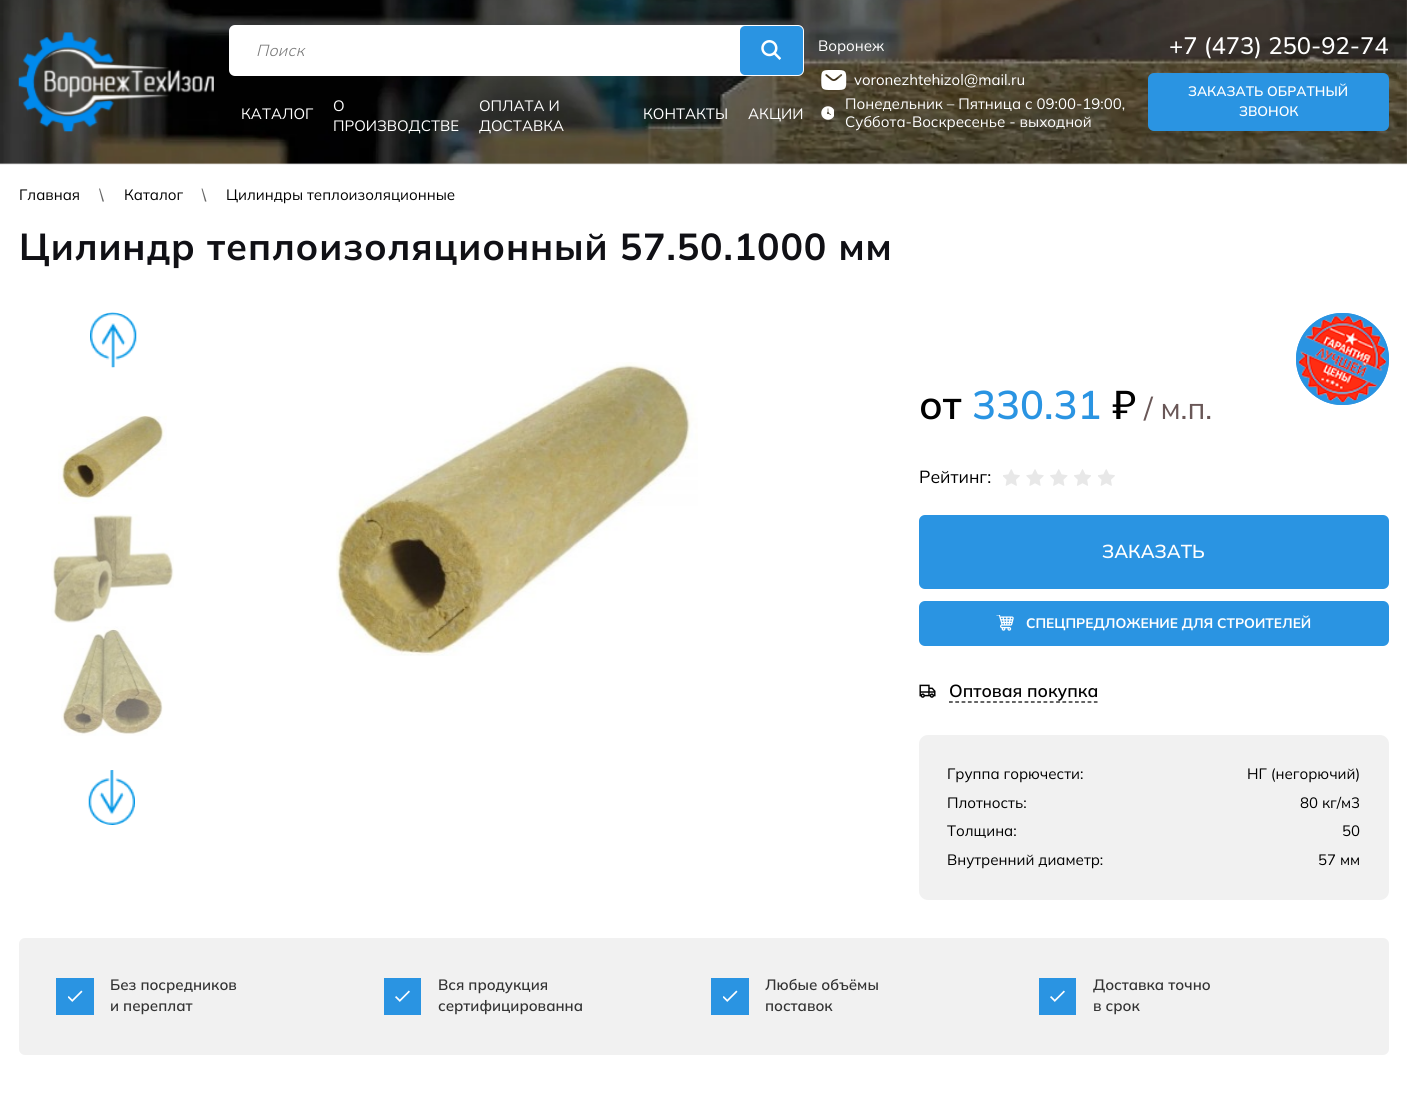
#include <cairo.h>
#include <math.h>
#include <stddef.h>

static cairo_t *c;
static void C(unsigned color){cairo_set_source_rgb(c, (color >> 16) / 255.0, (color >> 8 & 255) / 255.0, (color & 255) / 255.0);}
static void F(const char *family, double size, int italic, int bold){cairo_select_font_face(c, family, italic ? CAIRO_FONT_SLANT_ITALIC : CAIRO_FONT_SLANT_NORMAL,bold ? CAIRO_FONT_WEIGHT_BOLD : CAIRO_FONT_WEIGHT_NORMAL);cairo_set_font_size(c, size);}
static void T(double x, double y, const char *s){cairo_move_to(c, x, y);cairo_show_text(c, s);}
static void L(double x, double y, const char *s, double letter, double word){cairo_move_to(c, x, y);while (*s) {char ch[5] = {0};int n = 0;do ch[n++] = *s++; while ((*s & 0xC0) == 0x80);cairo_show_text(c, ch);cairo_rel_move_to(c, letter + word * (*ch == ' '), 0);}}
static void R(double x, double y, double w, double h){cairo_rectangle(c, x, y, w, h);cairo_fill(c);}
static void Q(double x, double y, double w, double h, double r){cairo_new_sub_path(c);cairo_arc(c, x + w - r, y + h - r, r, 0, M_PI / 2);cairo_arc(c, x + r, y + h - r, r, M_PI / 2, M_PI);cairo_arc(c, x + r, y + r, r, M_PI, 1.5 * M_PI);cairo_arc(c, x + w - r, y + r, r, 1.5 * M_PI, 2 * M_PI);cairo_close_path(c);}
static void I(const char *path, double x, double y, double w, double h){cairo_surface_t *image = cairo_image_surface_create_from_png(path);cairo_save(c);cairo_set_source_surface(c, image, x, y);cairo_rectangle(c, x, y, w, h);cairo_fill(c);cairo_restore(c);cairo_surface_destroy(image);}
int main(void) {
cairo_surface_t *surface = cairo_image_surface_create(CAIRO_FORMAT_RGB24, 1407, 1098);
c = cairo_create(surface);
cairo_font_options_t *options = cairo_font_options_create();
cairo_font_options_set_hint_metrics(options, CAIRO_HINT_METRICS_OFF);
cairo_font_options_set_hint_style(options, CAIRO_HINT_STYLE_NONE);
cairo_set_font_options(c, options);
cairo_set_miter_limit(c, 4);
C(0xffffff);
cairo_paint(c);
I("1.png",0,0,1407,165);
I("2.png",18,32,196,101);
C(0xffffff);
Q(230.5,26.5,572,48,4.5);
cairo_fill_preserve(c);
cairo_set_line_width(c,3);
cairo_stroke(c);
F("Mulish Light",16,1,0);
C(0x757575);
L(256,56,"Поиск",.25,0);
C(0x2a94e2);
Q(740,26,63,49,5);
cairo_fill(c);
I("3.png",761,40,20,20);
F("Mulish",15,0,0);
C(0xffffff);
T(241,119,"КАТАЛОГ");
T(333,111,"О");
T(333,131,"ПРОИЗВОДСТВЕ");
T(479,111,"ОПЛАТА И");
T(479,131,"ДОСТАВКА");
T(643,119,"КОНТАКТЫ");
T(748,119,"АКЦИИ");
T(818,51,"Воронеж");
I("4.png",821,70,26,20);
T(854,85,"voronezhtehizol@mail.ru");
T(845,109,"Понедельник – Пятница с 09:00-19:00,");
I("5.png",821,106,13,14);
T(845,127,"Суббота-Воскресенье - выходной");
F("Mulish Medium",23.75,0,0);
T(1169,54,"+7 (473) 250-92-74");
C(0x2a94e2);
Q(1148,73,241,58,6);
cairo_fill(c);
F("Mulish SemiBold",13.75,0,0);
C(0xffffff);
T(1188,96,"ЗАКАЗАТЬ ОБРАТНЫЙ");
T(1239,116,"ЗВОНОК");
F("Mulish",15,0,0);
C(0x000000);
T(19,200,"Главная");
C(0x666666);
cairo_new_path(c);
cairo_move_to(c,102.5,201.5);
cairo_line_to(c,99,188.5);
cairo_line_to(c,100,188.5);
cairo_line_to(c,104,201.5);
cairo_close_path(c);
cairo_fill(c);
C(0x000000);
T(124,200,"Каталог");
C(0x666666);
cairo_new_path(c);
cairo_move_to(c,205,201.5);
cairo_line_to(c,201.5,188.5);
cairo_line_to(c,202.5,188.5);
cairo_line_to(c,206.5,201.5);
cairo_close_path(c);
cairo_fill(c);
C(0x000000);
T(226,200,"Цилиндры теплоизоляционные");
F("Mulish",37.5,0,1);
C(0x101015);
L(19,260,"Цилиндр теплоизоляционный 57.50.1000 мм",.9,0);
I("6.png",90,312,47,56);
I("7.png",58,415,109,89);
I("8.png",51,514,123,109);
I("9.png",61,626,102,110);
I("10.png",88,770,47,55);
I("11.png",336,362,362,294);
F("Mulish SemiBold",40,0,0);
C(0x000000);
T(919,419,"от");
C(0x2a94e2);
T(972,419,"330.31");
C(0x000000);
T(1112,419,"₽");
F("Mulish",30,0,0);
C(0x695757);
T(1144,419,"/ м.п.");
C(0x2a94e2);
Q(1296,313,93,92,46);
cairo_fill(c);
I("12.png",1299,316,87,86);
Q(1297.5,314.5,90,89,44.5);
cairo_stroke(c);
F("Mulish",17.5,0,0);
C(0x000000);
T(919,483,"Рейтинг:");
I("13.png",1003,469,17,17);
I("14.png",1026,469,18,17);
I("15.png",1050,469,18,17);
I("16.png",1074,469,17,17);
I("13.png",1098,469,17,17);
C(0x2a94e2);
Q(919,515,470,74,6);
cairo_fill(c);
F("Mulish SemiBold",18.75,0,0);
C(0xffffff);
T(1102,558,"ЗАКАЗАТЬ");
C(0x2a94e2);
Q(919,601,470,45,6);
cairo_fill(c);
I("17.png",996,615,18,16);
F("Mulish",13.75,0,1);
C(0xffffff);
T(1026,628,"СПЕЦПРЕДЛОЖЕНИЕ ДЛЯ СТРОИТЕЛЕЙ");
cairo_new_path(c);
cairo_move_to(c,949,702);
cairo_line_to(c,1097.5,702);
C(0x000000);
cairo_set_line_width(c,1.2);
cairo_set_dash(c,(double[]){3.75,2.55},2,0);
cairo_stroke(c);
I("18.png",919,684,17,14);
F("Mulish SemiBold",17.5,0,0);
T(949,697,"Оптовая покупка");
C(0xf1f1f1);
Q(919,735,470,165,9);
cairo_fill(c);
F("Mulish",15,0,0);
C(0x000000);
T(947,779,"Группа горючести:");
T(1247,779,"НГ (негорючий)");
T(947,808,"Плотность:");
T(1300,808,"80 кг/м3");
T(947,836,"Толщина:");
T(1342,836,"50");
T(947,865,"Внутренний диаметр:");
T(1318,865,"57 мм");
C(0xf1f1f1);
Q(19,938,1370,117,6);
cairo_fill(c);
C(0x2a94e2);
R(56,978,38,37);
I("19.png",68,990,15,12);
F("Mulish SemiBold",15,0,0);
C(0x333333);
T(110,990,"Без посредников");
T(110,1011,"и переплат");
C(0x2a94e2);
R(384,978,37,37);
I("20.png",395,990,15,12);
C(0x333333);
T(438,990,"Вся продукция");
T(438,1011,"сертифицированна");
C(0x2a94e2);
R(711,978,38,37);
I("19.png",723,990,15,12);
C(0x333333);
T(765,990,"Любые объёмы");
T(765,1011,"поставок");
C(0x2a94e2);
R(1039,978,37,37);
I("20.png",1050,990,15,12);
C(0x333333);
T(1093,990,"Доставка точно");
T(1093,1011,"в срок");
cairo_surface_write_to_png(surface, "o.png");
cairo_font_options_destroy(options);
cairo_destroy(c);
cairo_surface_destroy(surface);
return 0;
}
